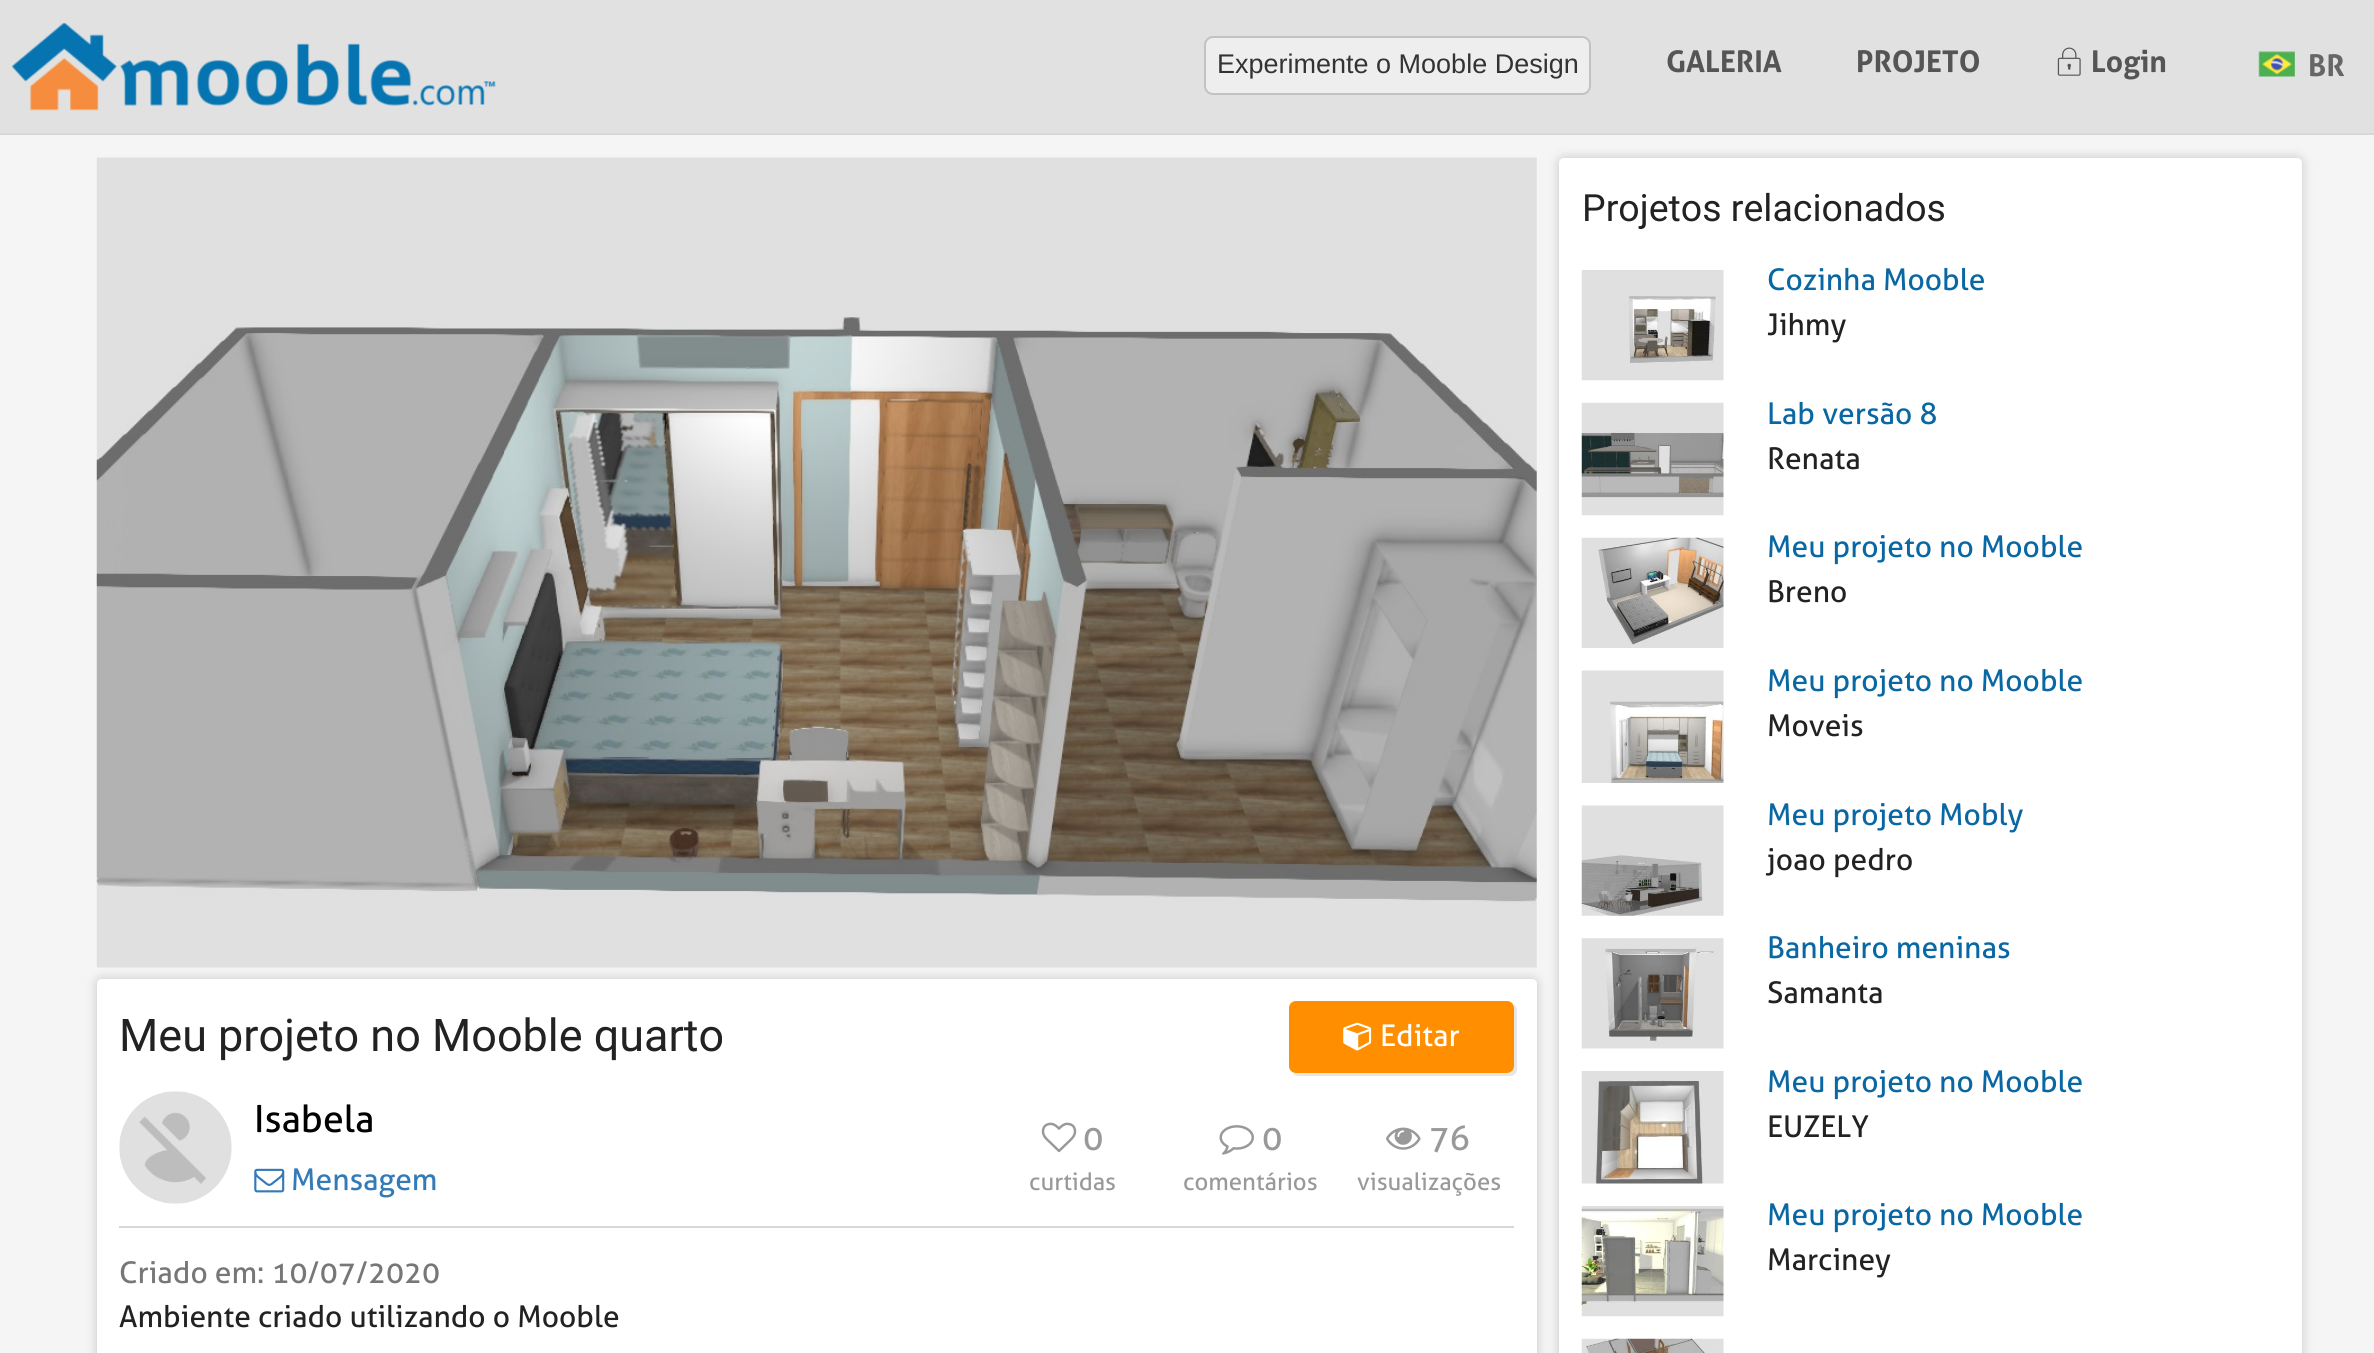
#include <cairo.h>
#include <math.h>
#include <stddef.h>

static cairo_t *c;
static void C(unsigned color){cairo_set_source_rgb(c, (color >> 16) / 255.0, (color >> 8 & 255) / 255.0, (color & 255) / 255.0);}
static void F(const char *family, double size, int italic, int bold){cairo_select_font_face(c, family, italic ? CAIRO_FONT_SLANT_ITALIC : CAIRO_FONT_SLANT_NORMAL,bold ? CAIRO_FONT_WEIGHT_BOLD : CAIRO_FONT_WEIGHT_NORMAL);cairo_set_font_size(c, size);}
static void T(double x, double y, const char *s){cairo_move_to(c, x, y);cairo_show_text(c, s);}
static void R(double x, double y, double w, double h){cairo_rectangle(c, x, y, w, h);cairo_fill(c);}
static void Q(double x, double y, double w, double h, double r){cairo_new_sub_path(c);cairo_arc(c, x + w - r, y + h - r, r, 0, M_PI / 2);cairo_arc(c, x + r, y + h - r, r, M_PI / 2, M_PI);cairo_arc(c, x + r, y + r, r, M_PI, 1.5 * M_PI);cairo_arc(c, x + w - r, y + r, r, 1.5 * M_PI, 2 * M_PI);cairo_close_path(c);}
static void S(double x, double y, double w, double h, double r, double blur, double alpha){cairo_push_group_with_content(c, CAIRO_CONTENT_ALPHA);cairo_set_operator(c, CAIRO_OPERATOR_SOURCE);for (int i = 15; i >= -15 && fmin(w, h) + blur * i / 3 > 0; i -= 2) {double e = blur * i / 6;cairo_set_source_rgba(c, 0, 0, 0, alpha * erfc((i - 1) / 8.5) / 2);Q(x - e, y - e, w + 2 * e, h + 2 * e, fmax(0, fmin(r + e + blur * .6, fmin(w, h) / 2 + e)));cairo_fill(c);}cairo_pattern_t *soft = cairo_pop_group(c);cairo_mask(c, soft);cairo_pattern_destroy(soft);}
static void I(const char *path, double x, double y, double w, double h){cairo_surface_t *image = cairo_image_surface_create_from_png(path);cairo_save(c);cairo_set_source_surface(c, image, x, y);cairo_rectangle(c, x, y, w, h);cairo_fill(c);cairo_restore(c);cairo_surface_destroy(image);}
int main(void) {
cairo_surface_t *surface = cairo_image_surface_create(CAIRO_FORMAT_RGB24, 2374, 1353);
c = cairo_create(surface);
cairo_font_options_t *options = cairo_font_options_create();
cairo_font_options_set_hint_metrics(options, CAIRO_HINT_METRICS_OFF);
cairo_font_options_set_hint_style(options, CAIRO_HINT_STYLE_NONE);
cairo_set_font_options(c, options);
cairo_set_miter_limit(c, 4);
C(0xf5f5f5);
cairo_paint(c);
C(0xe1e1e1);
R(0,0,2374,133);
C(0xd8d8d8);
R(0,133,2374,2);
I("1.png",11,23,485,88);
C(0xeeeeee);
Q(1205,37,385,57,8);
cairo_fill_preserve(c);
C(0xc2c2c2);
cairo_stroke(c);
F("Liberation Sans",27,0,0);
C(0x333333);
T(1217,73,"Experimente o Mooble Design");
F("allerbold",30,0,1);
C(0x555555);
T(1666,72,"GALERIA");
T(1856,72,"PROJETO");
I("2.png",2057,47,24,29);
T(2091,72,"Login");
I("3.png",2258,51,37,26);
C(0x666666);
T(2308,76,"BR");
C(0x000000);
S(97,979,1440,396,5,5.5,.2);
I("4.png",96,157,1441,811);
C(0xffffff);
Q(97,979,1440,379,5);
cairo_fill(c);
F("Roboto",45,0,0);
C(0x222222);
T(119,1051,"Meu projeto no Mooble quarto");
C(0xe6e6e6);
cairo_new_path(c);
cairo_move_to(c,1293,1073);
cairo_curve_to(c,1294,1075,1296,1076,1299,1076);
cairo_line_to(c,1510,1076);
cairo_curve_to(c,1514,1076,1517,1073,1517,1069);
cairo_line_to(c,1517,1011);
cairo_curve_to(c,1517,1008,1516,1006,1514,1005);
cairo_line_to(c,1514,1008);
cairo_line_to(c,1514,1066);
cairo_curve_to(c,1514,1070,1511,1073,1508,1073);
cairo_line_to(c,1296,1073);
cairo_close_path(c);
cairo_fill(c);
C(0xff8e00);
Q(1289,1001,225,72,7);
cairo_fill(c);
I("5.png",1343,1022,29,29);
F("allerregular",30,0,0);
C(0xffffff);
T(1380,1046,"Editar");
I("6.png",119,1091,113,113);
F("allerregular",37.5,0,0);
C(0x000000);
T(254,1132,"Isabela");
I("7.png",254,1168,31,25);
F("allerregular",30,0,0);
C(0x337ab7);
T(291,1190,"Mensagem");
I("8.png",1041,1122,36,31);
F("allerregular",34,0,0);
C(0x999999);
T(1083,1150,"0");
F("allerregular",24,0,0);
T(1029,1190,"curtidas");
I("9.png",1219,1125,35,30);
F("allerregular",34,0,0);
T(1262,1150,"0");
F("allerregular",24,0,0);
T(1183,1190,"comentários");
I("10.png",1386,1127,35,23);
F("allerregular",34,0,0);
T(1429,1150,"76");
F("allerregular",24,0,0);
T(1357,1190,"visualizações");
C(0xd8d8d8);
R(119,1226,1395,2);
F("allerregular",30,0,0);
C(0x777777);
T(119,1283,"Criado em: 10/07/2020");
C(0x222222);
T(119,1327,"Ambiente criado utilizando o Mooble");
C(0x000000);
S(1559,158,743,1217,5,5.5,.2);
C(0xffffff);
Q(1559,158,743,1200,5);
cairo_fill(c);
F("Roboto",37.5,0,0);
C(0x222222);
T(1582,221,"Projetos relacionados");
I("11.png",1581,270,143,111);
F("allerregular",30,0,0);
C(0x0967a3);
T(1767,290,"Cozinha Mooble");
C(0x222222);
T(1767,335,"Jihmy");
I("12.png",1581,402,143,114);
C(0x0967a3);
T(1767,424,"Lab versão 8");
C(0x222222);
T(1767,469,"Renata");
I("13.png",1581,537,143,111);
C(0x0967a3);
T(1767,557,"Meu projeto no Mooble");
C(0x222222);
T(1767,602,"Breno");
I("14.png",1581,670,143,113);
C(0x0967a3);
T(1767,691,"Meu projeto no Mooble");
C(0x222222);
T(1767,736,"Moveis");
I("15.png",1581,805,143,111);
C(0x0967a3);
T(1767,825,"Meu projeto Mobly");
C(0x222222);
T(1767,870,"joao pedro");
I("16.png",1581,938,143,111);
C(0x0967a3);
T(1767,958,"Banheiro meninas");
C(0x222222);
T(1767,1003,"Samanta");
I("17.png",1581,1071,143,113);
C(0x0967a3);
T(1767,1092,"Meu projeto no Mooble");
C(0x222222);
T(1767,1137,"EUZELY");
I("18.png",1581,1206,143,111);
C(0x0967a3);
T(1767,1225,"Meu projeto no Mooble");
C(0x222222);
T(1767,1270,"Marciney");
I("19.png",1581,1338,143,15);
cairo_surface_write_to_png(surface, "o.png");
cairo_font_options_destroy(options);
cairo_destroy(c);
cairo_surface_destroy(surface);
return 0;
}
